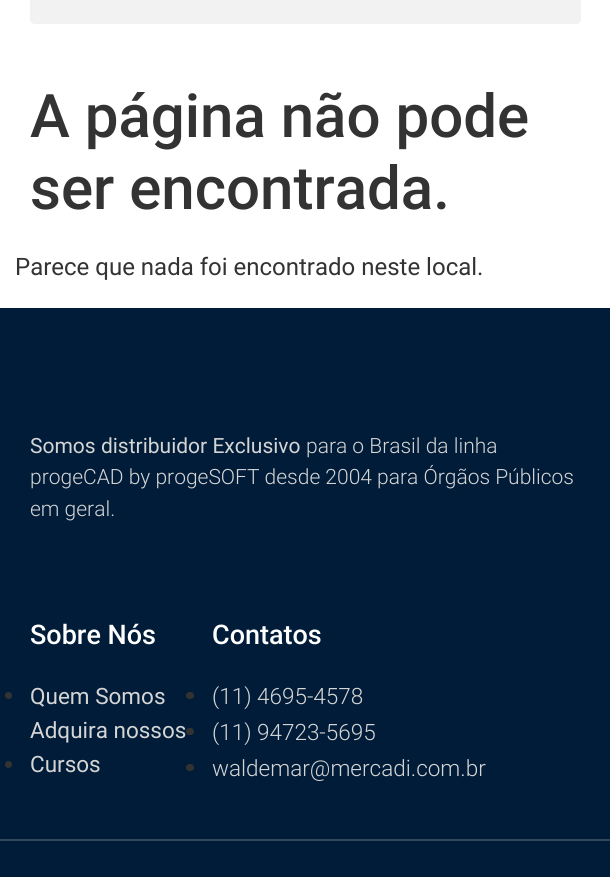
#include <cairo.h>
#include <math.h>
#include <stddef.h>

static cairo_t *c;
static void C(unsigned color){cairo_set_source_rgb(c, (color >> 16) / 255.0, (color >> 8 & 255) / 255.0, (color & 255) / 255.0);}
static void F(const char *family, double size, int italic, int bold){cairo_select_font_face(c, family, italic ? CAIRO_FONT_SLANT_ITALIC : CAIRO_FONT_SLANT_NORMAL,bold ? CAIRO_FONT_WEIGHT_BOLD : CAIRO_FONT_WEIGHT_NORMAL);cairo_set_font_size(c, size);}
static void T(double x, double y, const char *s){cairo_move_to(c, x, y);cairo_show_text(c, s);}
static void R(double x, double y, double w, double h){cairo_rectangle(c, x, y, w, h);cairo_fill(c);}
static void Q(double x, double y, double w, double h, double r){cairo_new_sub_path(c);cairo_arc(c, x + w - r, y + h - r, r, 0, M_PI / 2);cairo_arc(c, x + r, y + h - r, r, M_PI / 2, M_PI);cairo_arc(c, x + r, y + r, r, M_PI, 1.5 * M_PI);cairo_arc(c, x + w - r, y + r, r, 1.5 * M_PI, 2 * M_PI);cairo_close_path(c);}
int main(void) {
cairo_surface_t *surface = cairo_image_surface_create(CAIRO_FORMAT_RGB24, 610, 877);
c = cairo_create(surface);
cairo_font_options_t *options = cairo_font_options_create();
cairo_font_options_set_hint_metrics(options, CAIRO_HINT_METRICS_OFF);
cairo_font_options_set_hint_style(options, CAIRO_HINT_STYLE_NONE);
cairo_set_font_options(c, options);
cairo_set_miter_limit(c, 4);
C(0xffffff);
cairo_paint(c);
C(0xf2f2f2);
Q(30,-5,551,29,5);
cairo_fill(c);
F("Roboto Medium",60,0,0);
C(0x333333);
T(30,137,"A página não pode");
T(30,209,"ser encontrada.");
F("Roboto",24,0,0);
T(15,275,"Parece que nada foi encontrado neste local.");
C(0x001c38);
R(0,308,610,531);
F("Roboto",21,0,0);
C(0xd5d5d5);
T(30,453,"Somos distribuidor Exclusivo");
F("Roboto Light",21,0,0);
T(306,453,"para o Brasil da linha");
T(30,484,"progeCAD by progeSOFT desde 2004 para Órgãos Públicos");
T(30,516,"em geral.");
F("Roboto Medium",27,0,0);
C(0xffffff);
T(30,644,"Sobre Nós");
C(0x333333);
cairo_new_path(c);
cairo_arc(c,8.5,695.5,3.5,0,2 * M_PI);
cairo_fill(c);
F("Roboto",22.5,0,0);
C(0xd5d5d5);
T(30,704,"Quem Somos");
C(0x333333);
cairo_new_path(c);
cairo_arc(c,8.5,764.5,3.5,0,2 * M_PI);
cairo_fill(c);
C(0xd5d5d5);
T(30,738,"Adquira nossos");
T(30,772,"Cursos");
F("Roboto Medium",27,0,0);
C(0xffffff);
T(212,644,"Contatos");
C(0x333333);
Q(186,692,8,7,3.5);
cairo_fill(c);
F("Roboto Light",22.5,0,0);
C(0xd5d5d5);
T(212,704,"(11) 4695-4578");
C(0x333333);
Q(186,728,8,7,3.5);
cairo_fill(c);
C(0xd5d5d5);
T(212,740,"(11) 94723-5695");
C(0x333333);
Q(186,764,8,7,3.5);
cairo_fill(c);
C(0xd5d5d5);
T(212,776,"waldemar@mercadi.com.br");
C(0x001c38);
R(0,841,610,36);
C(0x30475e);
R(0,839,610,2);
cairo_surface_write_to_png(surface, "o.png");
cairo_font_options_destroy(options);
cairo_destroy(c);
cairo_surface_destroy(surface);
return 0;
}
